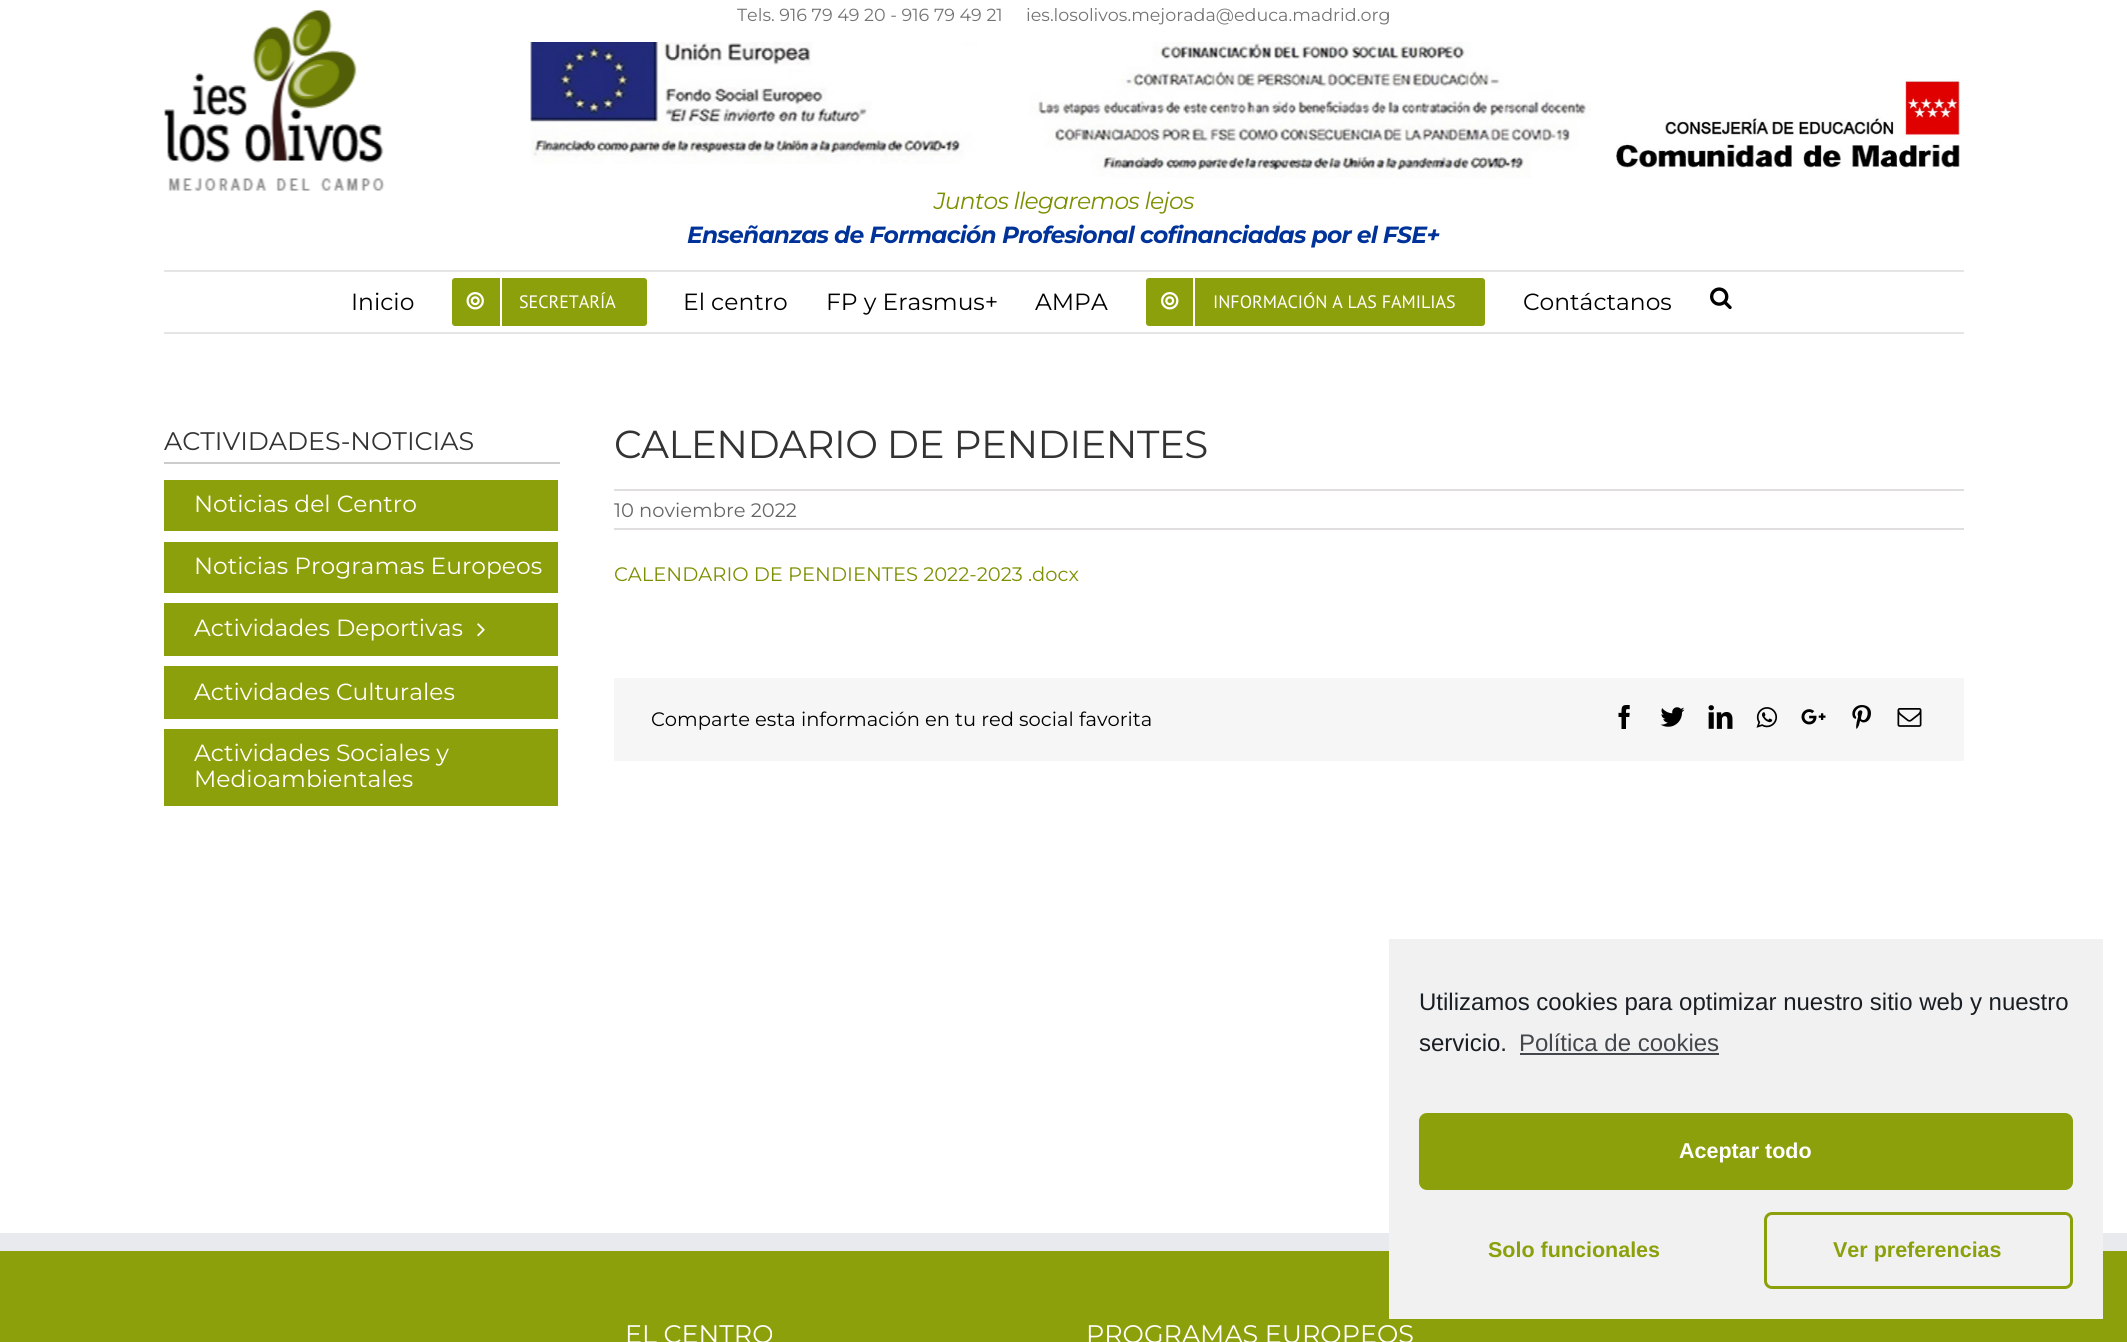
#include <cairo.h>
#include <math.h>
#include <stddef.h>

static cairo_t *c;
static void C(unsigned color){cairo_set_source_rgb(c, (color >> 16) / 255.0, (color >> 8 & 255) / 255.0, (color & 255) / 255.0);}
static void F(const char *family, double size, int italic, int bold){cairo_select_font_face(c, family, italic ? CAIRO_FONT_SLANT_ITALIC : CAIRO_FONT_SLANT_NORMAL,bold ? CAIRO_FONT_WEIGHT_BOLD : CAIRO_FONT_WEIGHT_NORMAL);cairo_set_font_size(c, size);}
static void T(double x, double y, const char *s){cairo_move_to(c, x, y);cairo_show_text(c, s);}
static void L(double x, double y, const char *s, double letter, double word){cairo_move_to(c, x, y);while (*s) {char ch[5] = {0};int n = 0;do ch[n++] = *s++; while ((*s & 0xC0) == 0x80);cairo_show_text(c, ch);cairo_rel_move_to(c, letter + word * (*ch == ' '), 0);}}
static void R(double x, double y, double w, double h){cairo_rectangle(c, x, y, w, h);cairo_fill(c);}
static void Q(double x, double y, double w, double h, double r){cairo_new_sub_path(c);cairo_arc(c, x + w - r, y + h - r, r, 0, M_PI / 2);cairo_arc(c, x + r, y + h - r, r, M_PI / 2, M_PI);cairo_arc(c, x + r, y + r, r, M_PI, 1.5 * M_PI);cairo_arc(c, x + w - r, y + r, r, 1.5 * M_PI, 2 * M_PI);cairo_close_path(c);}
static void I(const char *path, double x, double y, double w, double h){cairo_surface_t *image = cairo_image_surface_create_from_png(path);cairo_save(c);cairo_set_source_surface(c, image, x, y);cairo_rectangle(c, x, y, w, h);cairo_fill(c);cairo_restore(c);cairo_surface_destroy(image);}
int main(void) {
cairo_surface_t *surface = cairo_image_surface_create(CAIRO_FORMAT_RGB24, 2127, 1342);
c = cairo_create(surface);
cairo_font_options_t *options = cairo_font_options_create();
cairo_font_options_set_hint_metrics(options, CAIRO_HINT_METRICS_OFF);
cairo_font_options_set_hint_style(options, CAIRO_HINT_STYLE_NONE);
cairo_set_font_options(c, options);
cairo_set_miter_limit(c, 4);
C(0xffffff);
cairo_paint(c);
F("Montserrat Thin",17.55,0,0);
C(0x747474);
T(737,21,"Tels. 916 79 49 20 - 916 79 49 21");
T(1026,21,"ies.losolivos.mejorada@educa.madrid.org");
C(0xe5e5e5);
R(164,270,1800,2);
I("1.png",164,10,221,181);
I("2.png",1616,79,344,89);
I("3.png",530,42,1061,136);
F("Montserrat Thin",23.4,1,0);
C(0x7d9001);
L(934,209,"Juntos llegaremos lejos",-.75,0);
F("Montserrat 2 Thin",23.4,1,0);
C(0x003399);
L(687,243,"Enseñanzas de Formación Profesional cofinanciadas por el FSE+",-.75,0);
C(0xe5e5e5);
R(164,332,1800,2);
F("Montserrat Thin",23.4,0,0);
C(0x000000);
T(351,310,"Inicio");
C(0x8ca00b);
Q(452,278,195,48,3);
cairo_fill(c);
C(0xffffff);
R(500,278,2,48);
I("4.png",466,292,18,18);
F("PT Sans",18,0,0);
T(519,308,"SECRETARÍA");
F("Montserrat Thin",23.4,0,0);
C(0x000000);
T(683,310,"El centro");
T(826,310,"FP y Erasmus+");
T(1035,310,"AMPA");
C(0x8ca00b);
Q(1146,278,339,48,3);
cairo_fill(c);
C(0xffffff);
R(1193,278,2,48);
I("5.png",1161,292,18,18);
F("PT Sans",18,0,0);
T(1213,308,"INFORMACIÓN A LAS FAMILIAS");
F("Montserrat Thin",23.4,0,0);
C(0x000000);
T(1523,310,"Contáctanos");
I("6.png",1710,287,22,23);
C(0xcccccc);
R(164,462,396,2);
F("Montserrat Thin",25.4,0,0);
C(0x333333);
T(164,450,"ACTIVIDADES-NOTICIAS");
C(0x8ca00b);
R(164,480,394,51);
F("Montserrat Thin",23.4,0,0);
C(0xffffff);
T(194,512,"Noticias del Centro");
C(0x8ca00b);
R(164,542,394,51);
C(0xffffff);
T(194,574,"Noticias Programas Europeos");
C(0x8ca00b);
R(164,603,394,53);
C(0xffffff);
T(194,636,"Actividades Deportivas");
I("7.png",477,623,8,14);
C(0x8ca00b);
R(164,666,394,53);
C(0xffffff);
T(194,700,"Actividades Culturales");
C(0x8ca00b);
R(164,729,394,77);
C(0xffffff);
T(194,761,"Actividades Sociales y");
T(194,787,"Medioambientales");
F("Montserrat Thin",39,0,0);
C(0x333333);
L(614,458,"CALENDARIO DE PENDIENTES",-.6,0);
C(0xe0dede);
R(614,489,1350,2);
R(614,528,1350,2);
F("Montserrat Thin",19.5,0,0);
C(0x666666);
T(614,517,"10 noviembre 2022");
C(0x7d9001);
T(614,581,"CALENDARIO DE PENDIENTES 2022-2023 .docx");
C(0xf6f6f6);
R(614,678,1350,83);
C(0x000000);
T(651,726,"Comparte esta información en tu red social favorita");
I("8.png",1618,705,12,24);
I("9.png",1660,707,25,20);
I("10.png",1708,705,25,24);
I("11.png",1756,707,22,21);
I("12.png",1801,709,25,16);
I("13.png",1852,705,19,24);
I("14.png",1897,708,25,19);
C(0x8ca00b);
R(0,1251,2127,91);
C(0xe9eaee);
R(0,1233,2127,18);
F("Montserrat Thin",25.4,0,0);
C(0xffffff);
T(625,1343,"EL CENTRO");
T(1086,1343,"PROGRAMAS EUROPEOS");
C(0xf1f1f1);
R(1389,939,714,380);
F("Liberation Sans",24,0,0);
C(0x191e23);
T(1419,1010,"Utilizamos cookies para optimizar nuestro sitio web y nuestro");
T(1419,1051,"servicio.");
C(0x44484c);
T(1519,1051,"Política de cookies");
R(1520,1053,199,2);
C(0x8ca00b);
Q(1420.5,1114.5,651,74,6.5);
cairo_fill_preserve(c);
cairo_set_line_width(c,3);
cairo_stroke(c);
F("Liberation Sans",21.5,0,1);
C(0xffffff);
T(1679,1158,"Aceptar todo");
C(0x8ca00b);
T(1488,1257,"Solo funcionales");
Q(1765.5,1213.5,306,74,6.5);
cairo_stroke(c);
T(1833,1257,"Ver preferencias");
cairo_surface_write_to_png(surface, "o.png");
cairo_font_options_destroy(options);
cairo_destroy(c);
cairo_surface_destroy(surface);
return 0;
}
